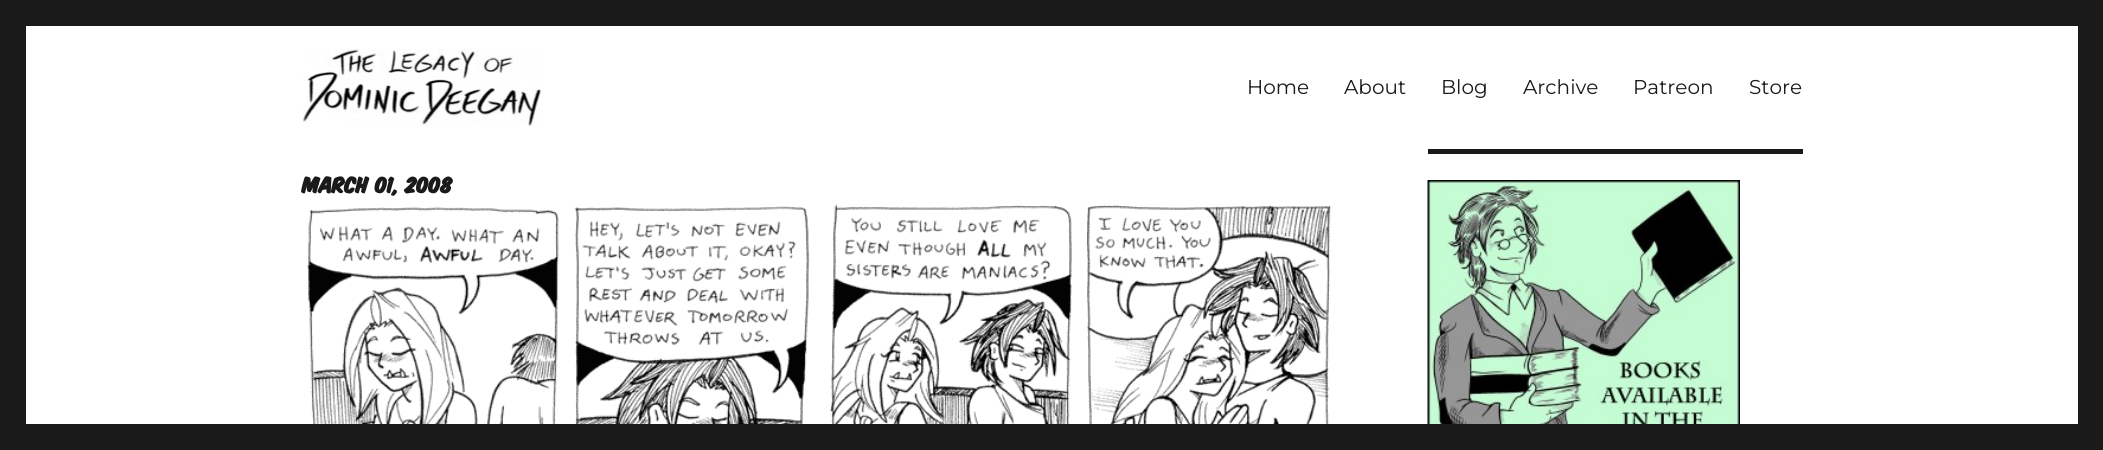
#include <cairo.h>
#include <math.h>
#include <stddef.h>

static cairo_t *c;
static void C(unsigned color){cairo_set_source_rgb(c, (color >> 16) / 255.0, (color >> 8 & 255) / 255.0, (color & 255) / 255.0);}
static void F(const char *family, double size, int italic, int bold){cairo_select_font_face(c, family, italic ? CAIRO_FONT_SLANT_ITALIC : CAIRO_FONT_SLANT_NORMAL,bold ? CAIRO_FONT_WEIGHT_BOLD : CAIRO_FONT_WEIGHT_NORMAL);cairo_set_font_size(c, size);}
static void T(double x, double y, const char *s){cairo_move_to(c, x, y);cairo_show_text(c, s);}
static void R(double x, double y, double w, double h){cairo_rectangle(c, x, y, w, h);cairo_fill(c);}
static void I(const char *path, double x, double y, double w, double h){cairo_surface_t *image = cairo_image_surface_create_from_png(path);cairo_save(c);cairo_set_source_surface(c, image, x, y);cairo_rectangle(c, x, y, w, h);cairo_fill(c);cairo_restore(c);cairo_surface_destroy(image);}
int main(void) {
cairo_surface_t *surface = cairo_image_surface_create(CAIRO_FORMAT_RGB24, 2103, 450);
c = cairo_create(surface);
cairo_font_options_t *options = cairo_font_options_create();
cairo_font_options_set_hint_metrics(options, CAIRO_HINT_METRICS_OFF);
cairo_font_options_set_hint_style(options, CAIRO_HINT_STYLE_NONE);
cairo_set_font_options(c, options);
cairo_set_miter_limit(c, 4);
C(0x1a1a1a);
cairo_paint(c);
C(0xffffff);
R(26,26,2052,398);
I("1.png",303,49,240,77);
F("Montserrat Thin",20,0,0);
C(0x1a1a1a);
T(1247,94,"Home");
T(1344,94,"About");
T(1441,94,"Blog");
T(1523,94,"Archive");
T(1633,94,"Patreon");
T(1749,94,"Store");
F("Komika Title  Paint",17.5,0,1);
T(302,193,"March 01, 2008");
I("2.png",307,204,1025,220);
R(1428,149,375,5);
I("3.png",1427,180,313,244);
cairo_surface_write_to_png(surface, "o.png");
cairo_font_options_destroy(options);
cairo_destroy(c);
cairo_surface_destroy(surface);
return 0;
}
